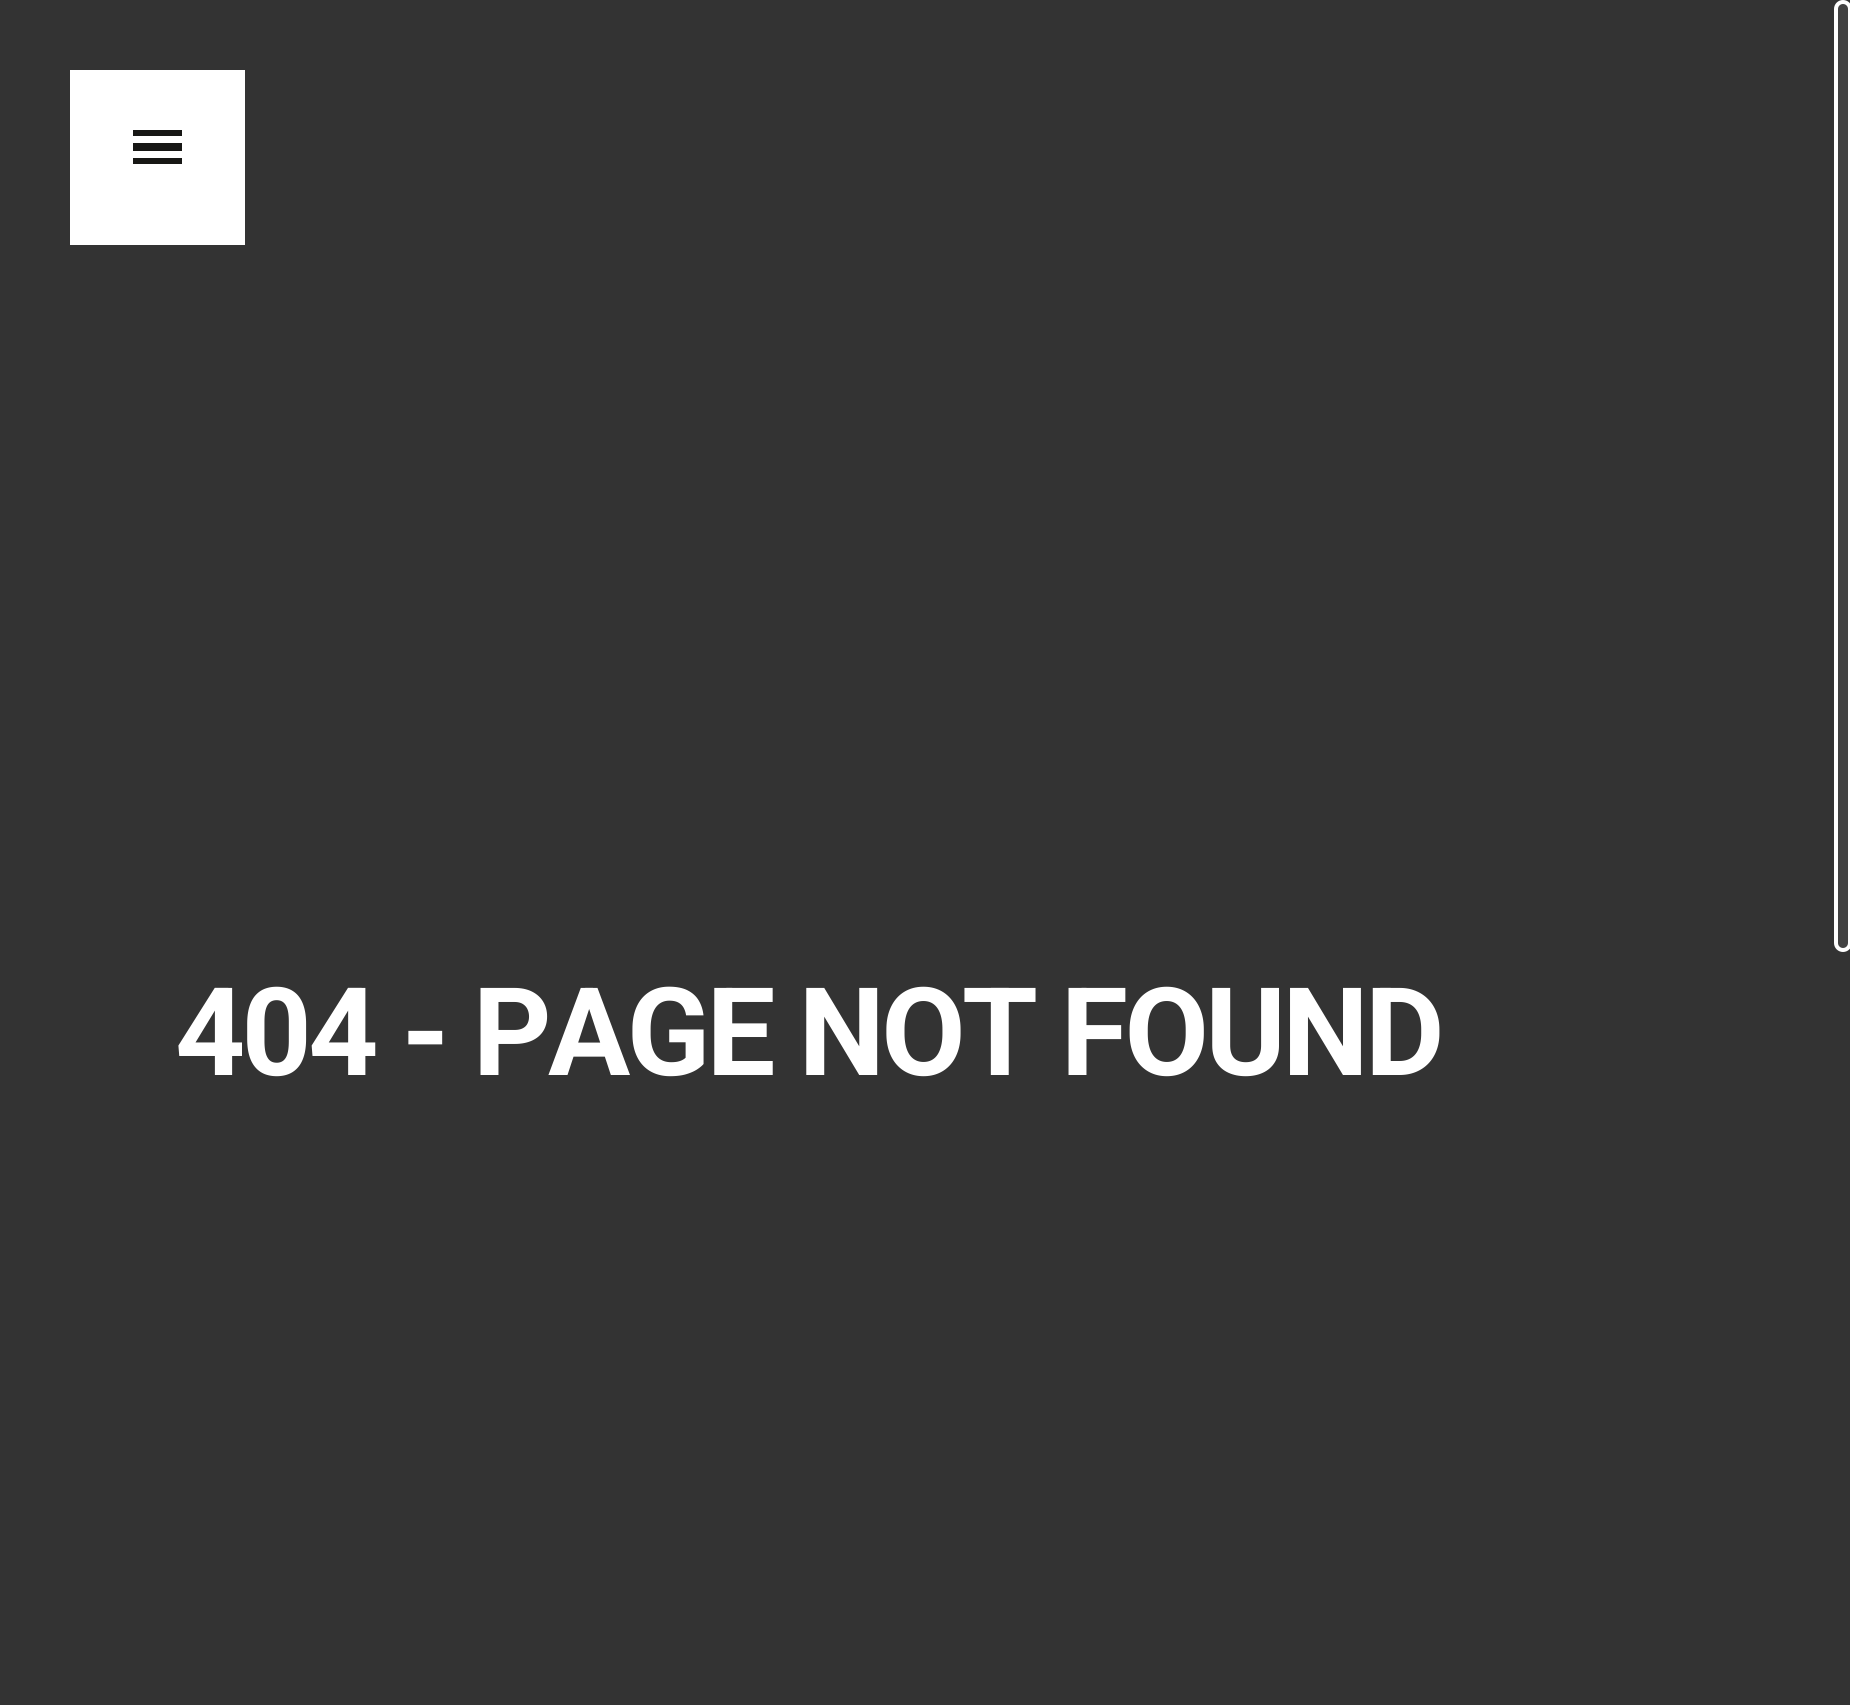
#include <cairo.h>
#include <math.h>
#include <stddef.h>

static cairo_t *c;
static void C(unsigned color){cairo_set_source_rgb(c, (color >> 16) / 255.0, (color >> 8 & 255) / 255.0, (color & 255) / 255.0);}
static void F(const char *family, double size, int italic, int bold){cairo_select_font_face(c, family, italic ? CAIRO_FONT_SLANT_ITALIC : CAIRO_FONT_SLANT_NORMAL,bold ? CAIRO_FONT_WEIGHT_BOLD : CAIRO_FONT_WEIGHT_NORMAL);cairo_set_font_size(c, size);}
static void L(double x, double y, const char *s, double letter, double word){cairo_move_to(c, x, y);while (*s) {char ch[5] = {0};int n = 0;do ch[n++] = *s++; while ((*s & 0xC0) == 0x80);cairo_show_text(c, ch);cairo_rel_move_to(c, letter + word * (*ch == ' '), 0);}}
static void R(double x, double y, double w, double h){cairo_rectangle(c, x, y, w, h);cairo_fill(c);}
static void Q(double x, double y, double w, double h, double r){cairo_new_sub_path(c);cairo_arc(c, x + w - r, y + h - r, r, 0, M_PI / 2);cairo_arc(c, x + r, y + h - r, r, M_PI / 2, M_PI);cairo_arc(c, x + r, y + r, r, M_PI, 1.5 * M_PI);cairo_arc(c, x + w - r, y + r, r, 1.5 * M_PI, 2 * M_PI);cairo_close_path(c);}
int main(void) {
cairo_surface_t *surface = cairo_image_surface_create(CAIRO_FORMAT_RGB24, 1850, 1705);
c = cairo_create(surface);
cairo_font_options_t *options = cairo_font_options_create();
cairo_font_options_set_hint_metrics(options, CAIRO_HINT_METRICS_OFF);
cairo_font_options_set_hint_style(options, CAIRO_HINT_STYLE_NONE);
cairo_set_font_options(c, options);
cairo_set_miter_limit(c, 4);
C(0x333333);
cairo_paint(c);
C(0x424242);
Q(1836,2,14,948,7);
cairo_fill_preserve(c);
C(0xffffff);
cairo_set_line_width(c,4);
cairo_stroke(c);
R(70,70,175,175);
C(0x171715);
cairo_new_path(c);
cairo_move_to(c,133,164);
cairo_line_to(c,182,164);
cairo_line_to(c,182,158);
cairo_line_to(c,133,158);
cairo_close_path(c);
cairo_move_to(c,133,130);
cairo_line_to(c,133,136);
cairo_line_to(c,182,136);
cairo_line_to(c,182,130);
cairo_close_path(c);
cairo_move_to(c,133,151);
cairo_line_to(c,182,151);
cairo_line_to(c,182,143);
cairo_line_to(c,133,143);
cairo_close_path(c);
cairo_fill(c);
F("Roboto",122.5,0,1);
C(0xffffff);
L(175,1075,"404 - PAGE NOT FOUND",-3.7,0);
cairo_surface_write_to_png(surface, "o.png");
cairo_font_options_destroy(options);
cairo_destroy(c);
cairo_surface_destroy(surface);
return 0;
}
